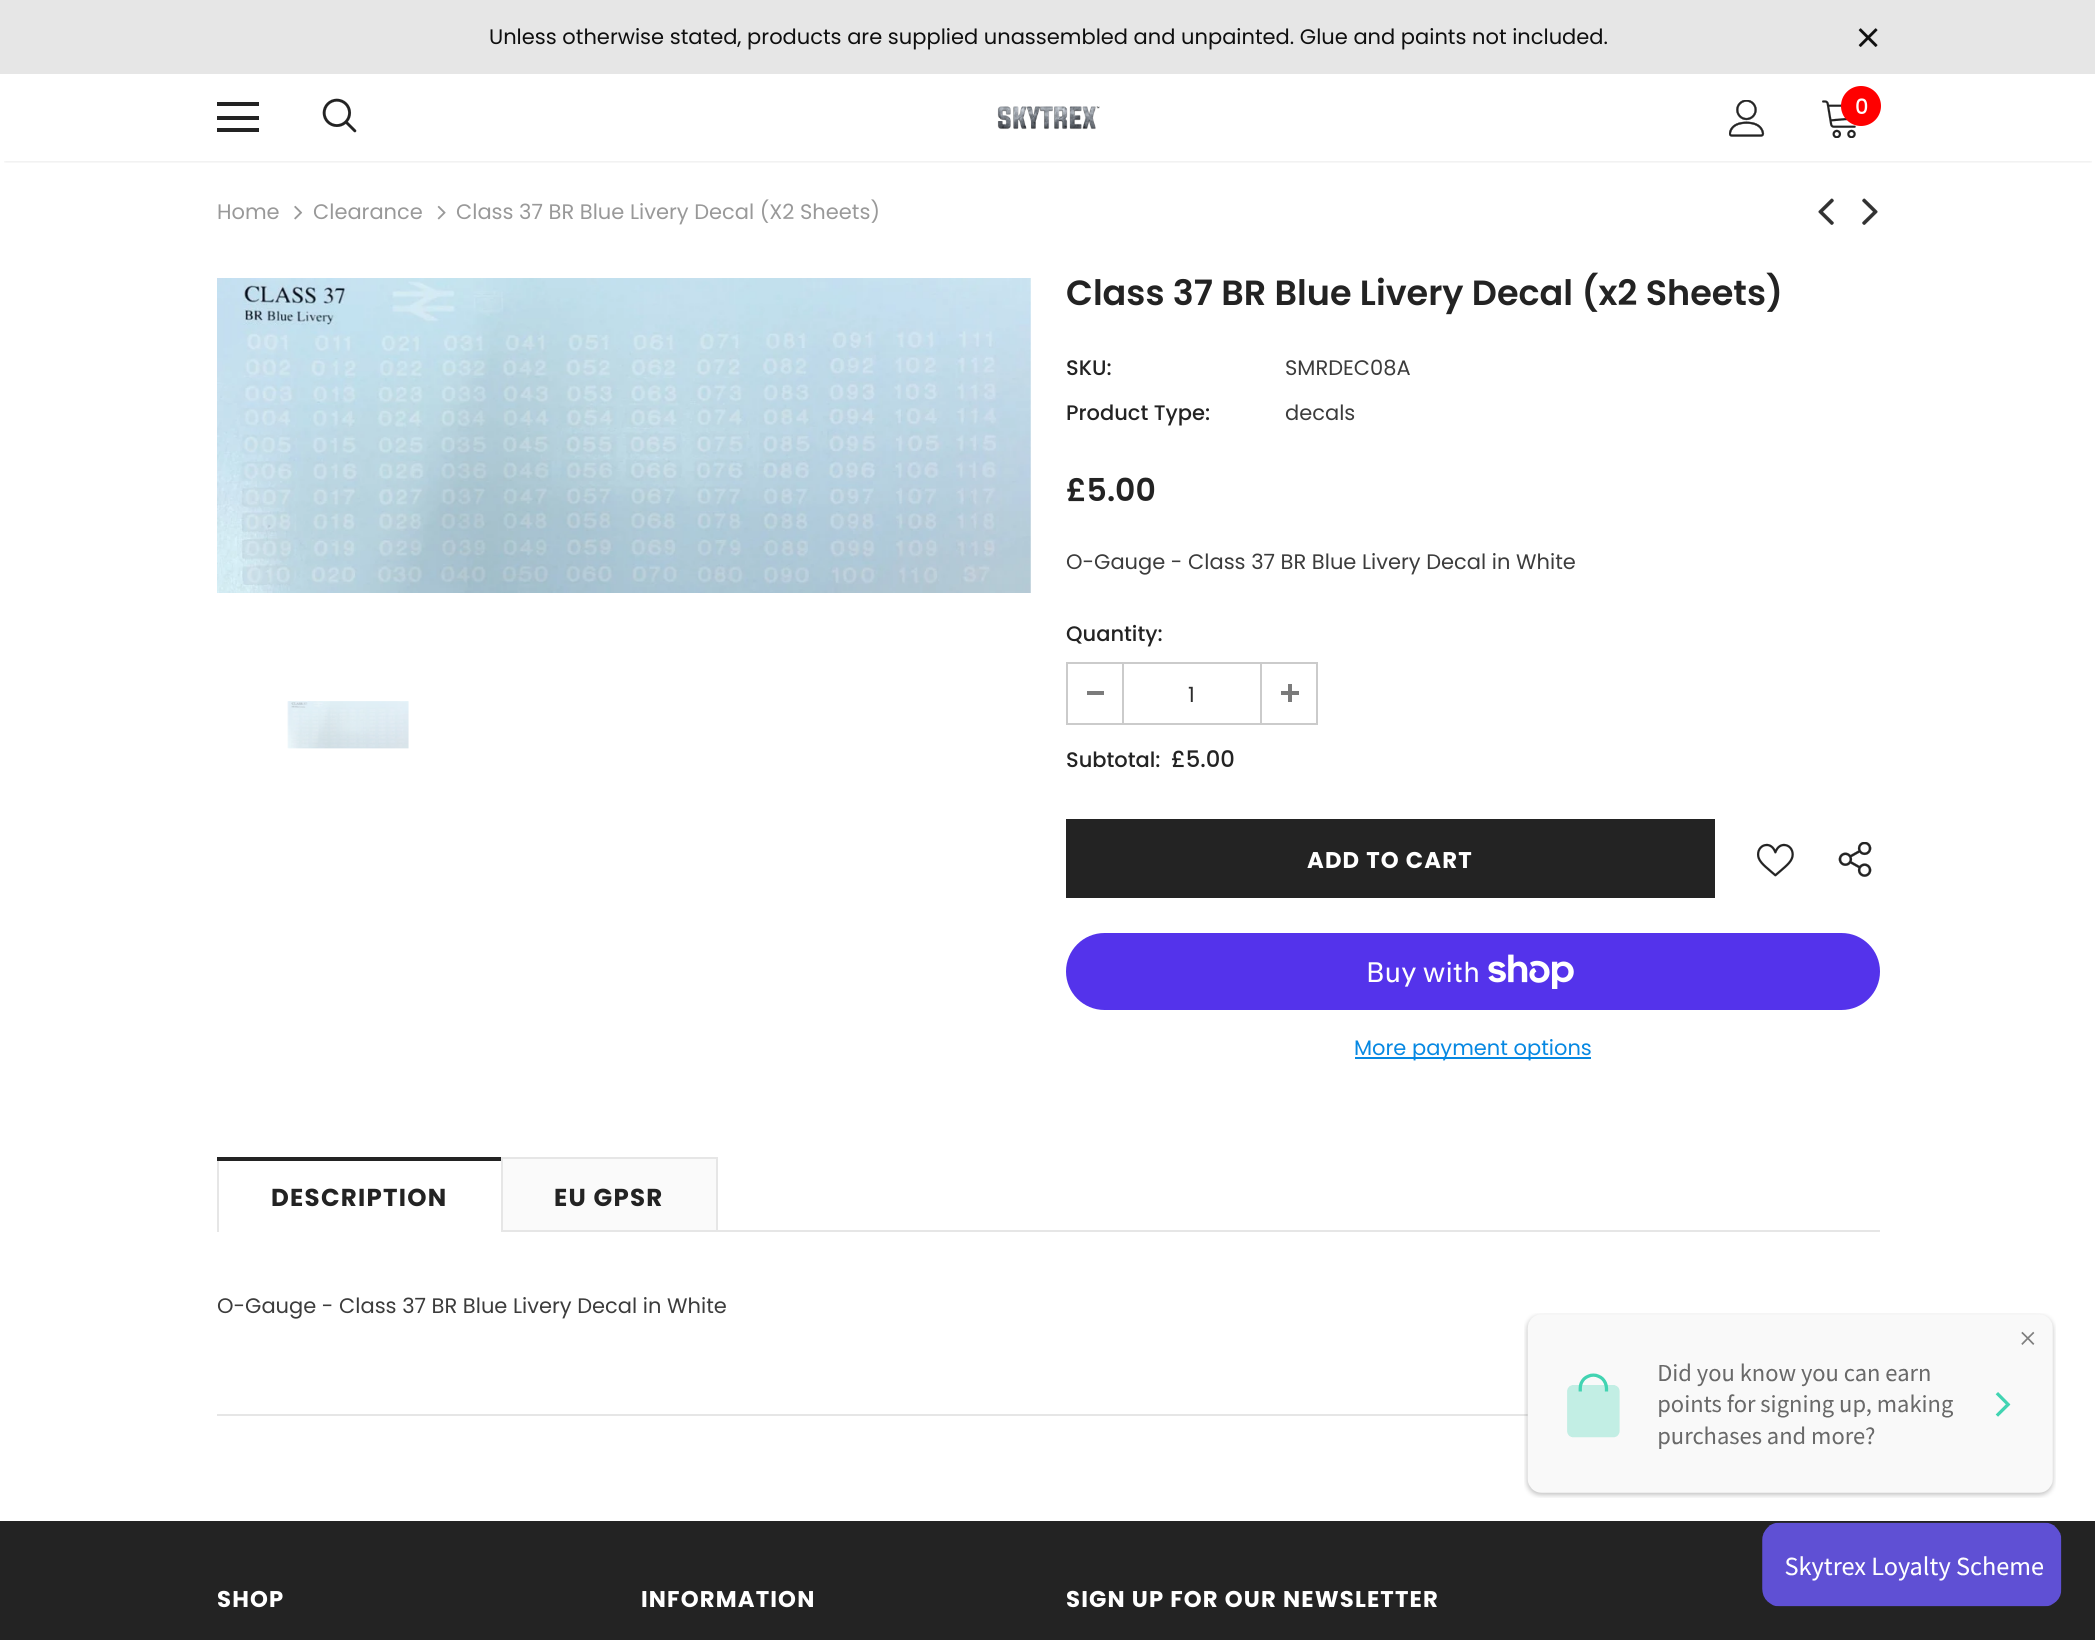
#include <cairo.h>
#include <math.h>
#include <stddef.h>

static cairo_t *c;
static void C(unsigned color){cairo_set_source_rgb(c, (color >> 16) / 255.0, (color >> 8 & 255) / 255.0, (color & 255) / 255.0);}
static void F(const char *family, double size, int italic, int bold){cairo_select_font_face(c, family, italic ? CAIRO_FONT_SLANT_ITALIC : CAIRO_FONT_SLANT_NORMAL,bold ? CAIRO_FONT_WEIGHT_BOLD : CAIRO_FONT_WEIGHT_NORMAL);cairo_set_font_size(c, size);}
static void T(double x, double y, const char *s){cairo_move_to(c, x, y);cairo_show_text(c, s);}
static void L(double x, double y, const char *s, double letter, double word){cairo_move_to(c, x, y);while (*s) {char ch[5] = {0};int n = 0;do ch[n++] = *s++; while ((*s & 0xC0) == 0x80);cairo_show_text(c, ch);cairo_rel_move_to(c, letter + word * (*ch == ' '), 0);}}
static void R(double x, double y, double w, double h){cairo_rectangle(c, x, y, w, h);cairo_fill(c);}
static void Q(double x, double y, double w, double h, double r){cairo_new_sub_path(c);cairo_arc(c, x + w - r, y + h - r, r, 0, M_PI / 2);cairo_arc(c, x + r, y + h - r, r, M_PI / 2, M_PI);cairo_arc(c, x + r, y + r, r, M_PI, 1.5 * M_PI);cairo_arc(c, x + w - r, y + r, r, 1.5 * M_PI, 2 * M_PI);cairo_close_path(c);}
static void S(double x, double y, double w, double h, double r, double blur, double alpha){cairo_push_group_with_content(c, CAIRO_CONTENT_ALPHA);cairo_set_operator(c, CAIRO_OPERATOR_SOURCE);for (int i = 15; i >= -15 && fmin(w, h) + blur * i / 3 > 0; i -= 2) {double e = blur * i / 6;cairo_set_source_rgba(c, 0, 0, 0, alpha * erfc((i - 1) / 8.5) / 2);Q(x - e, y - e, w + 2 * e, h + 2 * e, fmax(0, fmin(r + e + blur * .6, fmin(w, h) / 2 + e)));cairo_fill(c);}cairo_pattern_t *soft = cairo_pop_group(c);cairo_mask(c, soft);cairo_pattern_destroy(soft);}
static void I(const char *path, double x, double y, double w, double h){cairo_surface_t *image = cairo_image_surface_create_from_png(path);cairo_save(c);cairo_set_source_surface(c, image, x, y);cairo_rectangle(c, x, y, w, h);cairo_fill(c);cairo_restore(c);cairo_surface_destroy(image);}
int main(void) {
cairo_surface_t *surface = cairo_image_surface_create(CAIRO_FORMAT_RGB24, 2095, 1640);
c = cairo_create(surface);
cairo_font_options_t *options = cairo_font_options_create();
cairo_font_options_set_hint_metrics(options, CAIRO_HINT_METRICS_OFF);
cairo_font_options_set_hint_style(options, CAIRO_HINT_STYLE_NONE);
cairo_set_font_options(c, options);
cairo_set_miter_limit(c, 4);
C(0xffffff);
cairo_paint(c);
C(0xe6e6e6);
R(0,0,2095,74);
F("Poppins",21,0,0);
C(0x0f0f0f);
T(489,44,"Unless otherwise stated, products are supplied unassembled and unpainted. Glue and paints not included.");
I("1.png",1858,28,20,19);
cairo_save(c);
cairo_rectangle(c,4,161,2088,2);
cairo_clip(c);
C(0x000000);
S(5,84,2086,77,0,2.5,.12);
cairo_restore(c);
C(0x232323);
R(217,102,42,4);
R(217,116,42,4);
R(217,128,42,4);
I("2.png",322,98,35,35);
I("3.png",997,106,103,24);
I("4.png",1729,100,36,37);
I("5.png",1822,100,34,38);
C(0xff0000);
cairo_arc(c,1861,106,20,0,2 * M_PI);
cairo_fill(c);
F("Poppins Medium",21,0,0);
C(0xffffff);
T(1855,114,"0");
F("Poppins",21,0,0);
C(0x999999);
T(217,219,"Home");
I("6.png",294,205,9,15);
T(313,219,"Clearance");
I("7.png",437,205,9,15);
T(456,219,"Class 37 BR Blue Livery Decal (X2 Sheets)");
I("8.png",1818,198,16,27);
I("9.png",1862,198,16,27);
I("10.png",217,278,814,315);
I("11.png",287,701,122,48);
F("Poppins SemiBold",35,0,0);
C(0x232323);
T(1066,305,"Class 37 BR Blue Livery Decal (x2 Sheets)");
F("Poppins Medium",21,0,0);
T(1066,375,"SKU:");
F("Poppins",21,0,0);
C(0x3c3c3c);
T(1285,375,"SMRDEC08A");
F("Poppins Medium",21,0,0);
C(0x232323);
T(1066,420,"Product Type:");
F("Poppins",21,0,0);
C(0x3c3c3c);
T(1285,420,"decals");
F("Poppins SemiBold",31.5,0,0);
C(0x232323);
T(1066,501,"£5.00");
F("Poppins",21,0,0);
C(0x3c3c3c);
T(1066,569,"O-Gauge - Class 37 BR Blue Livery Decal in White");
F("Poppins Medium",21,0,0);
C(0x232323);
T(1066,641,"Quantity:");
cairo_rectangle(c,1067,663,250,61);
C(0xcbcbcb);
cairo_stroke(c);
R(1122,663,2,60);
C(0x7b7b7b);
R(1087,691,17,4);
F("Poppins",21,0,0);
C(0x2d2d2d);
T(1188,702,"1");
C(0xcbcbcb);
R(1260,663,2,60);
C(0x7b7b7b);
R(1281,691,18,4);
R(1288,684,4,18);
F("Poppins Medium",21,0,0);
C(0x232323);
T(1066,767,"Subtotal:");
F("Poppins Medium",22.75,0,0);
T(1171,767,"£5.00");
R(1066,819,649,79);
F("Poppins",22.75,0,1);
C(0xffffff);
L(1307,868,"ADD TO CART",1.15,0);
I("12.png",1757,843,37,34);
I("13.png",1838,842,34,35);
C(0x5433eb);
Q(1066,933,814,77,38.5);
cairo_fill(c);
F("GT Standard",28,0,0);
C(0xffffff);
T(1366,982,"Buy with");
I("14.png",1488,954,86,35);
C(0x0688e2);
R(1355,1057,236,2);
F("Poppins",21,0,0);
T(1354,1055,"More payment options");
C(0xe6e6e6);
R(217,1230,1663,2);
R(217,1157,2,73);
C(0x232323);
R(217,1157,285,4);
F("Poppins",24.5,0,1);
L(271,1206,"DESCRIPTION",1.25,0);
C(0xffffff);
R(219,1230,282,2);
C(0xfafafa);
R(503,1159,213,71);
C(0xe6e6e6);
R(501,1157,217,2);
R(716,1157,2,73);
R(501,1157,2,73);
C(0x232323);
L(554,1206,"EU GPSR",1.25,0);
F("Poppins",21,0,0);
C(0x3c3c3c);
T(217,1313,"O-Gauge - Class 37 BR Blue Livery Decal in White");
C(0xe6e6e6);
R(217,1414,1311,2);
C(0x232323);
R(0,1521,2095,119);
F("Poppins",22.75,0,1);
C(0xffffff);
L(217,1607,"SHOP",1.15,0);
L(641,1607,"INFORMATION",1.15,0);
L(1066,1607,"SIGN UP FOR OUR NEWSLETTER",1.15,0);
I("15.png",1524,1313,532,185);
I("16.png",1762,1522,300,85);
cairo_surface_write_to_png(surface, "o.png");
cairo_font_options_destroy(options);
cairo_destroy(c);
cairo_surface_destroy(surface);
return 0;
}
